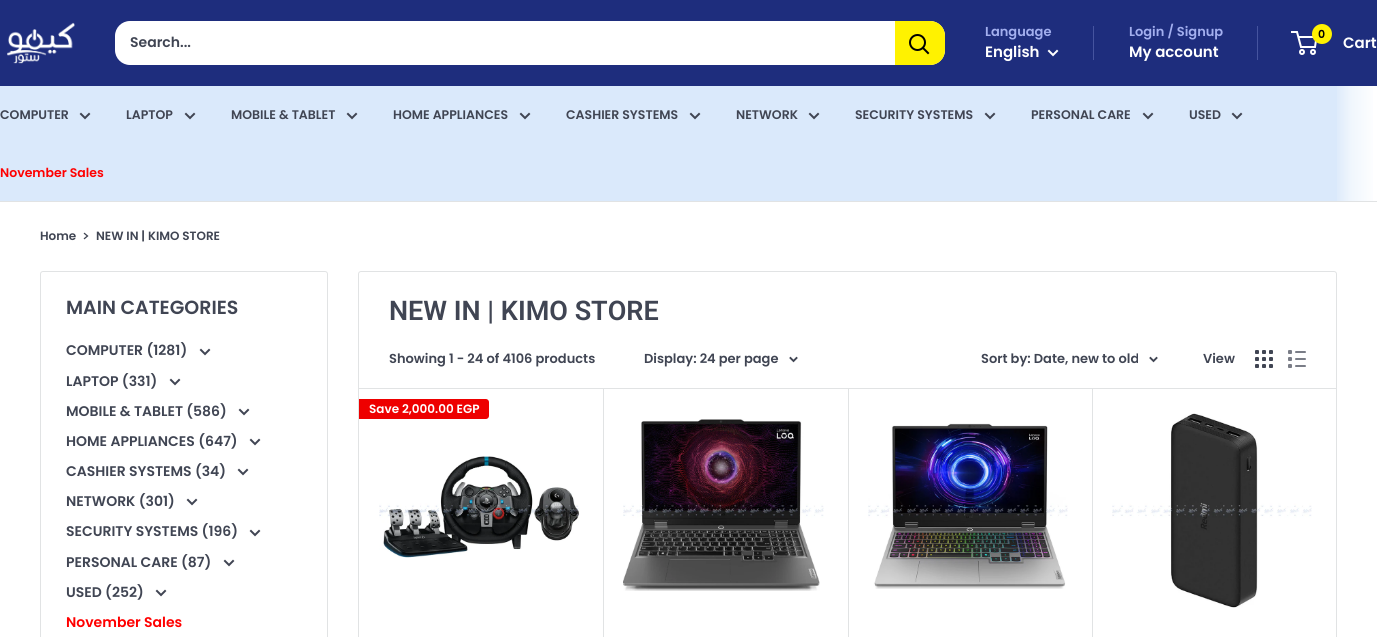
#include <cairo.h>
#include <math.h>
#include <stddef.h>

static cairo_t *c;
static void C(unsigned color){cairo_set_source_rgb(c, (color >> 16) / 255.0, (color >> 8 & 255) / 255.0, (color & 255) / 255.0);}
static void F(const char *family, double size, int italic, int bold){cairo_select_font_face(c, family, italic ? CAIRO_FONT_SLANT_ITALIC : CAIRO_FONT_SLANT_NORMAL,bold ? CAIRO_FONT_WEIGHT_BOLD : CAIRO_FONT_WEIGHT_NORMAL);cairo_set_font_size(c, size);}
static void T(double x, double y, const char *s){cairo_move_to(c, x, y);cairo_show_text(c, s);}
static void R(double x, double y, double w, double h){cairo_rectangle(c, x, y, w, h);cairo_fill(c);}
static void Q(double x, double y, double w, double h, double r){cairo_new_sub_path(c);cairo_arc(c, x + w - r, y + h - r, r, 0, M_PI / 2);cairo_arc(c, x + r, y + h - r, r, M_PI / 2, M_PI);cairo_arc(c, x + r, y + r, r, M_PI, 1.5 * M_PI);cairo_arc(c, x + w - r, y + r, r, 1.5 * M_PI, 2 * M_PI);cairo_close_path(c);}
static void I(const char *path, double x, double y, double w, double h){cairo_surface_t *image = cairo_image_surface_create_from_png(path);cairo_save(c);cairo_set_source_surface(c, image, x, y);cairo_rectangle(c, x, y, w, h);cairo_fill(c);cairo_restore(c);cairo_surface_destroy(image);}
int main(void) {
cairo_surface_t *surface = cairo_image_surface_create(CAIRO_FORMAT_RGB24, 1377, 637);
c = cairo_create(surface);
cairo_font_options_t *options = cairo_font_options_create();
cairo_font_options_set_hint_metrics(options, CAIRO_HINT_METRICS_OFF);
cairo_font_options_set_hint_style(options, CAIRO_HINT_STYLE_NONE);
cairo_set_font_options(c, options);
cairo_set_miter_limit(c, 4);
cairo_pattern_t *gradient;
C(0xffffff);
cairo_paint(c);
C(0x1e2d7d);
R(0,0,1377,86);
I("1.png",7,22,68,42);
C(0xffffff);
Q(115,21,830,44,15);
cairo_fill(c);
F("Poppins SemiBold",14,0,0);
C(0x404553);
T(130,47,"Search...");
C(0xfff200);
cairo_new_path(c);
cairo_move_to(c,895,21);
cairo_line_to(c,930,21);
cairo_curve_to(c,938.5,21,945,27.5,945,36);
cairo_line_to(c,945,50);
cairo_curve_to(c,945,58.5,938.5,65,930,65);
cairo_line_to(c,895,65);
cairo_close_path(c);
cairo_fill(c);
cairo_new_path(c);
cairo_move_to(c,928,53);
cairo_line_to(c,923,48);
C(0x000000);
cairo_set_line_cap(c,CAIRO_LINE_CAP_SQUARE);
cairo_stroke(c);
cairo_arc(c,917.5,42.5,7.5,0,2 * M_PI);
cairo_set_line_cap(c,CAIRO_LINE_CAP_BUTT);
cairo_stroke(c);
F("Poppins SemiBold",13,0,0);
C(0xa3afef);
T(985,36,"Language");
F("Poppins SemiBold",15,0,0);
C(0xffffff);
T(985,57,"English");
cairo_new_path(c);
cairo_move_to(c,1057,51);
cairo_line_to(c,1053,55);
cairo_line_to(c,1049,51);
cairo_set_line_cap(c,CAIRO_LINE_CAP_SQUARE);
cairo_stroke(c);
C(0x46549f);
R(1093,26,1,34);
F("Poppins SemiBold",13,0,0);
C(0xa3afef);
T(1129,36,"Login / Signup");
C(0x46549f);
R(1257,26,1,34);
F("Poppins SemiBold",15,0,0);
C(0xffffff);
T(1129,57,"My account");
cairo_new_path(c);
cairo_arc(c,1302,52,2,0,2 * M_PI);
cairo_set_line_cap(c,CAIRO_LINE_CAP_BUTT);
cairo_stroke(c);
cairo_arc(c,1313,52,2,0,2 * M_PI);
cairo_stroke(c);
cairo_new_path(c);
cairo_move_to(c,1298.5,37);
cairo_line_to(c,1316.5,37);
cairo_line_to(c,1315,47);
cairo_line_to(c,1301,47);
cairo_line_to(c,1297,32);
cairo_line_to(c,1291,32);
cairo_stroke(c);
C(0xfff200);
cairo_arc(c,1322,34,10,0,2 * M_PI);
cairo_fill(c);
F("Poppins SemiBold",11,0,0);
C(0x000000);
T(1318,38,"0");
F("Poppins SemiBold",15,0,0);
C(0xffffff);
T(1343,48,"Cart");
C(0xe1e3e4);
R(0,201,1377,1);
C(0xdae9fb);
R(0,86,1337,115);
F("Poppins SemiBold",12.5,0,0);
C(0x404553);
T(0,119,"COMPUTER");
cairo_new_path(c);
cairo_move_to(c,89,114);
cairo_line_to(c,85,118);
cairo_line_to(c,81,114);
cairo_set_line_cap(c,CAIRO_LINE_CAP_SQUARE);
cairo_stroke(c);
T(126,119,"LAPTOP");
cairo_new_path(c);
cairo_move_to(c,194,114);
cairo_line_to(c,190,118);
cairo_line_to(c,186,114);
cairo_stroke(c);
T(231,119,"MOBILE & TABLET");
cairo_new_path(c);
cairo_move_to(c,356,114);
cairo_line_to(c,352,118);
cairo_line_to(c,348,114);
cairo_stroke(c);
T(393,119,"HOME APPLIANCES");
cairo_new_path(c);
cairo_move_to(c,529,114);
cairo_line_to(c,525,118);
cairo_line_to(c,521,114);
cairo_stroke(c);
T(566,119,"CASHIER SYSTEMS");
cairo_new_path(c);
cairo_move_to(c,699,114);
cairo_line_to(c,695,118);
cairo_line_to(c,691,114);
cairo_stroke(c);
T(736,119,"NETWORK");
cairo_new_path(c);
cairo_move_to(c,818,114);
cairo_line_to(c,814,118);
cairo_line_to(c,810,114);
cairo_stroke(c);
T(855,119,"SECURITY SYSTEMS");
cairo_new_path(c);
cairo_move_to(c,994,114);
cairo_line_to(c,990,118);
cairo_line_to(c,986,114);
cairo_stroke(c);
T(1031,119,"PERSONAL CARE");
cairo_new_path(c);
cairo_move_to(c,1152,114);
cairo_line_to(c,1148,118);
cairo_line_to(c,1144,114);
cairo_stroke(c);
T(1189,119,"USED");
cairo_new_path(c);
cairo_move_to(c,1241,114);
cairo_line_to(c,1237,118);
cairo_line_to(c,1233,114);
cairo_stroke(c);
C(0xff0000);
T(0,177,"November Sales");
gradient = cairo_pattern_create_linear(1337,144,1377,144);
cairo_pattern_add_color_stop_rgba(gradient,0,0.871,0.922,0.984,1);
cairo_pattern_add_color_stop_rgba(gradient,.35,0.941,0.965,0.992,1);
cairo_pattern_add_color_stop_rgba(gradient,1,1,1,1,1);
cairo_set_source(c,gradient);
cairo_pattern_destroy(gradient);
R(1337,86,36,115);
F("Poppins SemiBold",12,0,0);
C(0x404553);
T(40,240,"Home");
cairo_new_path(c);
cairo_move_to(c,84.5,233.5);
cairo_line_to(c,87.5,236);
cairo_line_to(c,84.5,238.5);
cairo_set_line_width(c,1.3);
cairo_stroke(c);
T(96,240,"NEW IN | KIMO STORE");
Q(40.5,271.5,287,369,2.5);
C(0xe1e3e4);
cairo_set_line_width(c,1);
cairo_set_line_cap(c,CAIRO_LINE_CAP_BUTT);
cairo_stroke(c);
F("Poppins SemiBold",19,0,0);
C(0x404553);
T(66,314,"MAIN CATEGORIES");
F("Poppins SemiBold",14,0,0);
T(66,355,"COMPUTER (1281)");
cairo_new_path(c);
cairo_move_to(c,209,350);
cairo_line_to(c,205,354);
cairo_line_to(c,201,350);
cairo_move_to(c,179,380);
cairo_line_to(c,175,384);
cairo_line_to(c,171,380);
cairo_set_line_width(c,2);
cairo_set_line_cap(c,CAIRO_LINE_CAP_SQUARE);
cairo_stroke(c);
T(66,386,"LAPTOP (331)");
T(66,416,"MOBILE & TABLET (586)");
cairo_new_path(c);
cairo_move_to(c,248,410);
cairo_line_to(c,244,414);
cairo_line_to(c,240,410);
cairo_move_to(c,259,440);
cairo_line_to(c,255,444);
cairo_line_to(c,251,440);
cairo_stroke(c);
T(66,446,"HOME APPLIANCES (647)");
T(66,476,"CASHIER SYSTEMS (34)");
cairo_new_path(c);
cairo_move_to(c,247,470);
cairo_line_to(c,243,474);
cairo_line_to(c,239,470);
cairo_move_to(c,196,500);
cairo_line_to(c,192,504);
cairo_line_to(c,188,500);
cairo_stroke(c);
T(66,506,"NETWORK (301)");
T(66,536,"SECURITY SYSTEMS (196)");
cairo_new_path(c);
cairo_move_to(c,259,531);
cairo_line_to(c,255,535);
cairo_line_to(c,251,531);
cairo_move_to(c,233,561);
cairo_line_to(c,229,565);
cairo_line_to(c,225,561);
cairo_stroke(c);
T(66,567,"PERSONAL CARE (87)");
T(66,597,"USED (252)");
cairo_new_path(c);
cairo_move_to(c,165,591);
cairo_line_to(c,161,595);
cairo_line_to(c,157,591);
cairo_stroke(c);
C(0xff0000);
T(66,627,"November Sales");
Q(358.5,271.5,978,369,2.5);
C(0xe1e3e4);
cairo_set_line_width(c,1);
cairo_set_line_cap(c,CAIRO_LINE_CAP_BUTT);
cairo_stroke(c);
F("Roboto SemiBold",27,0,0);
C(0x404553);
T(389,320,"NEW IN | KIMO STORE");
C(0xe1e3e4);
R(603,388,1,249);
R(848,388,1,249);
R(1092,388,1,249);
R(359,388,977,1);
F("Poppins SemiBold",13,0,0);
C(0x404553);
T(389,363,"Showing 1 - 24 of 4106 products");
T(644,363,"Display: 24 per page");
cairo_new_path(c);
cairo_move_to(c,796.5,358);
cairo_line_to(c,793.5,361);
cairo_line_to(c,790.5,358);
cairo_set_line_width(c,1.9);
cairo_set_line_cap(c,CAIRO_LINE_CAP_SQUARE);
cairo_stroke(c);
T(981,363,"Sort by: Date, new to old");
cairo_new_path(c);
cairo_move_to(c,1156.5,358);
cairo_line_to(c,1153.5,361);
cairo_line_to(c,1150.5,358);
cairo_stroke(c);
T(1203,363,"View");
I("2.png",1255,350,18,18);
I("3.png",1288,350,18,18);
C(0xee0000);
cairo_new_path(c);
cairo_move_to(c,359,399);
cairo_line_to(c,486,399);
cairo_curve_to(c,487.5,399,489,400.5,489,402);
cairo_line_to(c,489,416);
cairo_curve_to(c,489,417.5,487.5,419,486,419);
cairo_line_to(c,359,419);
cairo_close_path(c);
cairo_fill(c);
F("Poppins SemiBold",12,0,0);
C(0xffffff);
T(369,413,"Save 2,000.00 EGP");
I("4.png",379,456,201,102);
I("5.png",623,419,201,172);
I("6.png",868,423,200,166);
I("7.png",1112,413,200,195);
cairo_surface_write_to_png(surface, "o.png");
cairo_font_options_destroy(options);
cairo_destroy(c);
cairo_surface_destroy(surface);
return 0;
}
